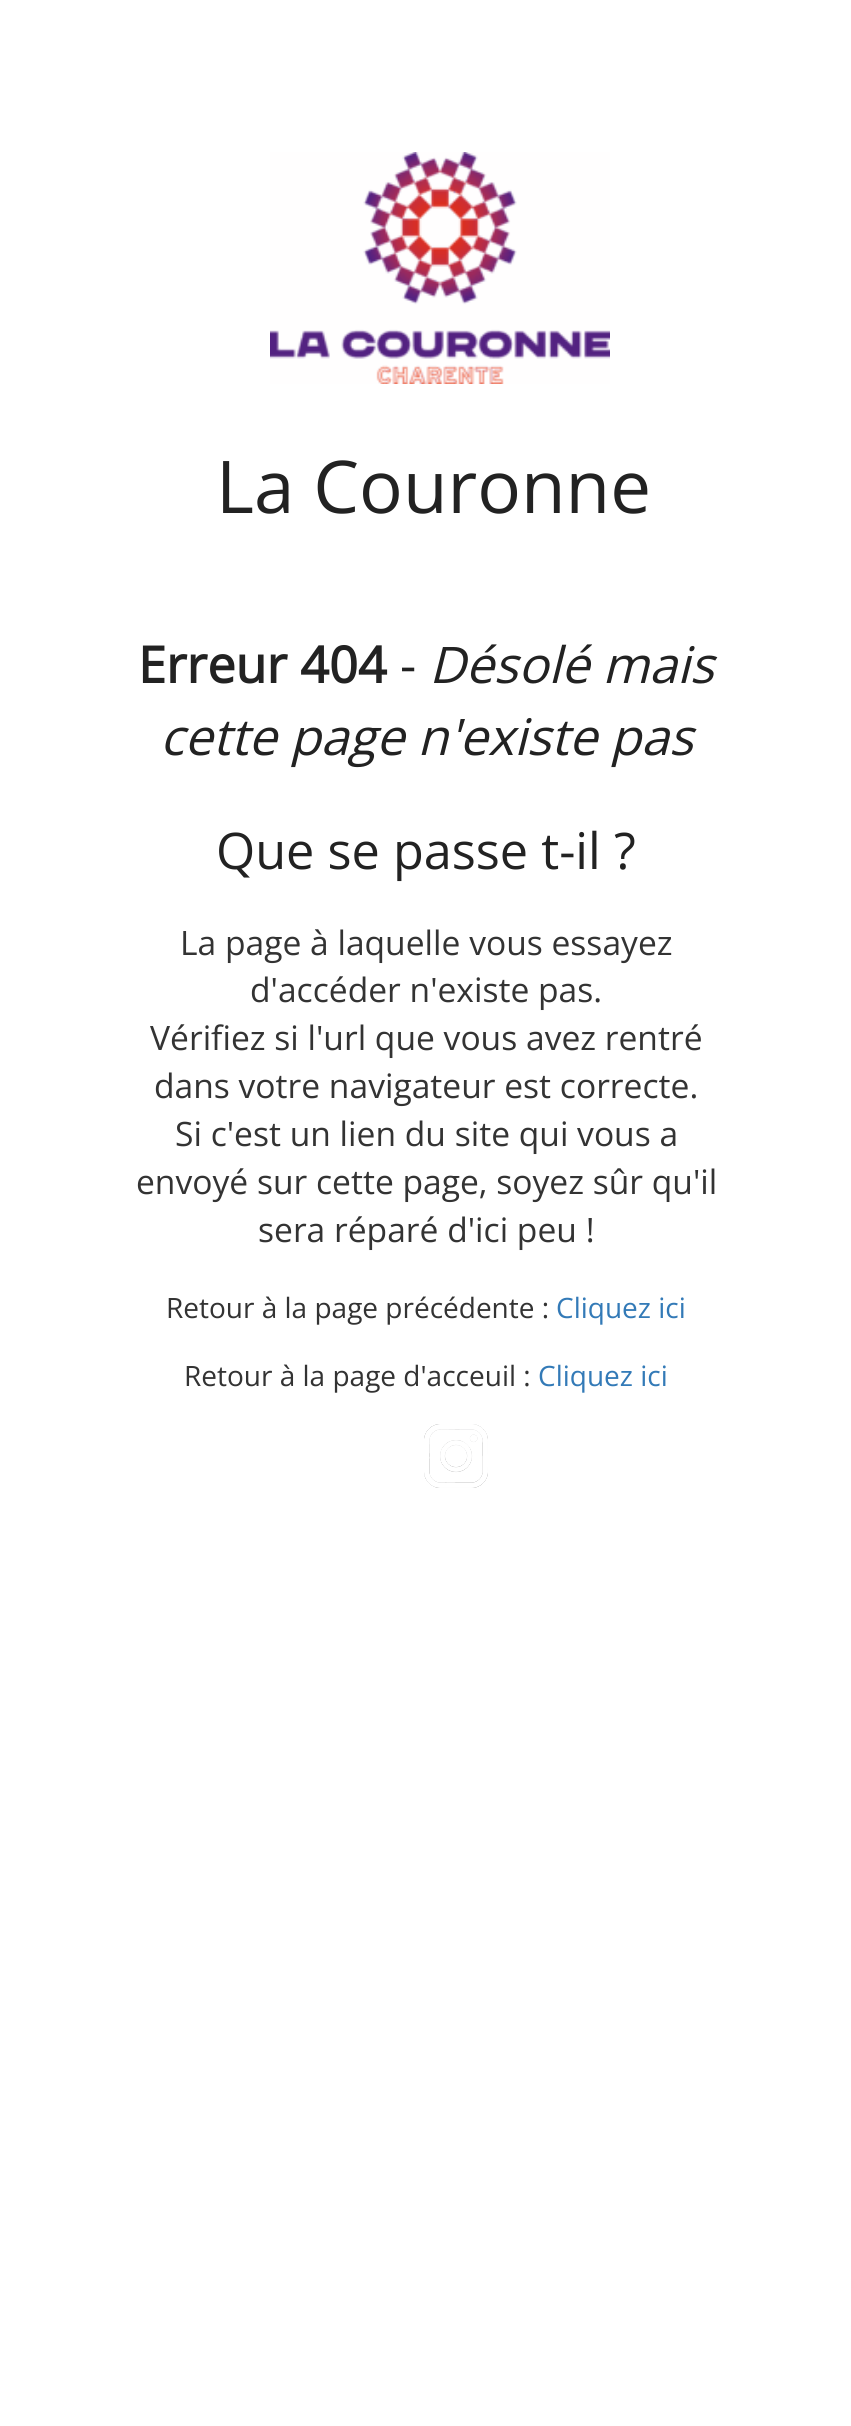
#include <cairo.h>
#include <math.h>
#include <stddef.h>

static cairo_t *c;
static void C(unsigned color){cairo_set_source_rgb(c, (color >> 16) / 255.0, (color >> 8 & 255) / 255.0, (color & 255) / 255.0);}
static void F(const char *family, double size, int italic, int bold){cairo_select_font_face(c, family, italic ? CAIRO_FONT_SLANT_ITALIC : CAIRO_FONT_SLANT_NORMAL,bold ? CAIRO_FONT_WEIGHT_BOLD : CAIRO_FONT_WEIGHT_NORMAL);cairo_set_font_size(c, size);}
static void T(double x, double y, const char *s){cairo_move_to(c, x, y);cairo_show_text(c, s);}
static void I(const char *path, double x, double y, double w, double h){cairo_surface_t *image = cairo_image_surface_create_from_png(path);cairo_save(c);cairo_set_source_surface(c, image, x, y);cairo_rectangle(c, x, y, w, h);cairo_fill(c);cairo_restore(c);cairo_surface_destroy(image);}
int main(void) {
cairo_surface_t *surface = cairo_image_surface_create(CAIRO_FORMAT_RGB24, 851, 2426);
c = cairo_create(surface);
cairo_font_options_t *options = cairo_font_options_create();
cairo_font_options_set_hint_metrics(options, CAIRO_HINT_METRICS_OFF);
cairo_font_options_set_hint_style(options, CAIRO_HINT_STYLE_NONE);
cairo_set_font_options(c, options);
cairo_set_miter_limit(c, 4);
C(0xffffff);
cairo_paint(c);
I("1.png",270,152,340,232);
F("Open Sans",72.75,0,0);
C(0x222222);
T(216,513,"La Couronne");
F("Open Sans",50.4,0,1);
T(138,683,"Erreur 404");
F("Open Sans",50.4,0,0);
T(400,683,"-");
F("Open Sans",50.4,1,0);
T(429,683,"Désolé mais");
T(160,755,"cette page n'existe pas");
F("Open Sans",50.4,0,0);
T(216,869,"Que se passe t-il ?");
F("Open Sans",33.6,0,0);
C(0x333333);
T(180,955,"La page à laquelle vous essayez");
T(250,1002,"d'accéder n'existe pas.");
T(150,1050,"Vérifiez si l'url que vous avez rentré");
T(154,1098,"dans votre navigateur est correcte.");
T(175,1146,"Si c'est un lien du site qui vous a");
T(136,1194,"envoyé sur cette page, soyez sûr qu'il");
T(258,1242,"sera réparé d'ici peu !");
F("Open Sans",28,0,0);
T(166,1318,"Retour à la page précédente :");
C(0x337ab7);
T(556,1318,"Cliquez ici");
C(0x333333);
T(184,1386,"Retour à la page d'acceuil :");
C(0x337ab7);
T(538,1386,"Cliquez ici");
I("2.png",424,1424,64,64);
cairo_surface_write_to_png(surface, "o.png");
cairo_font_options_destroy(options);
cairo_destroy(c);
cairo_surface_destroy(surface);
return 0;
}
